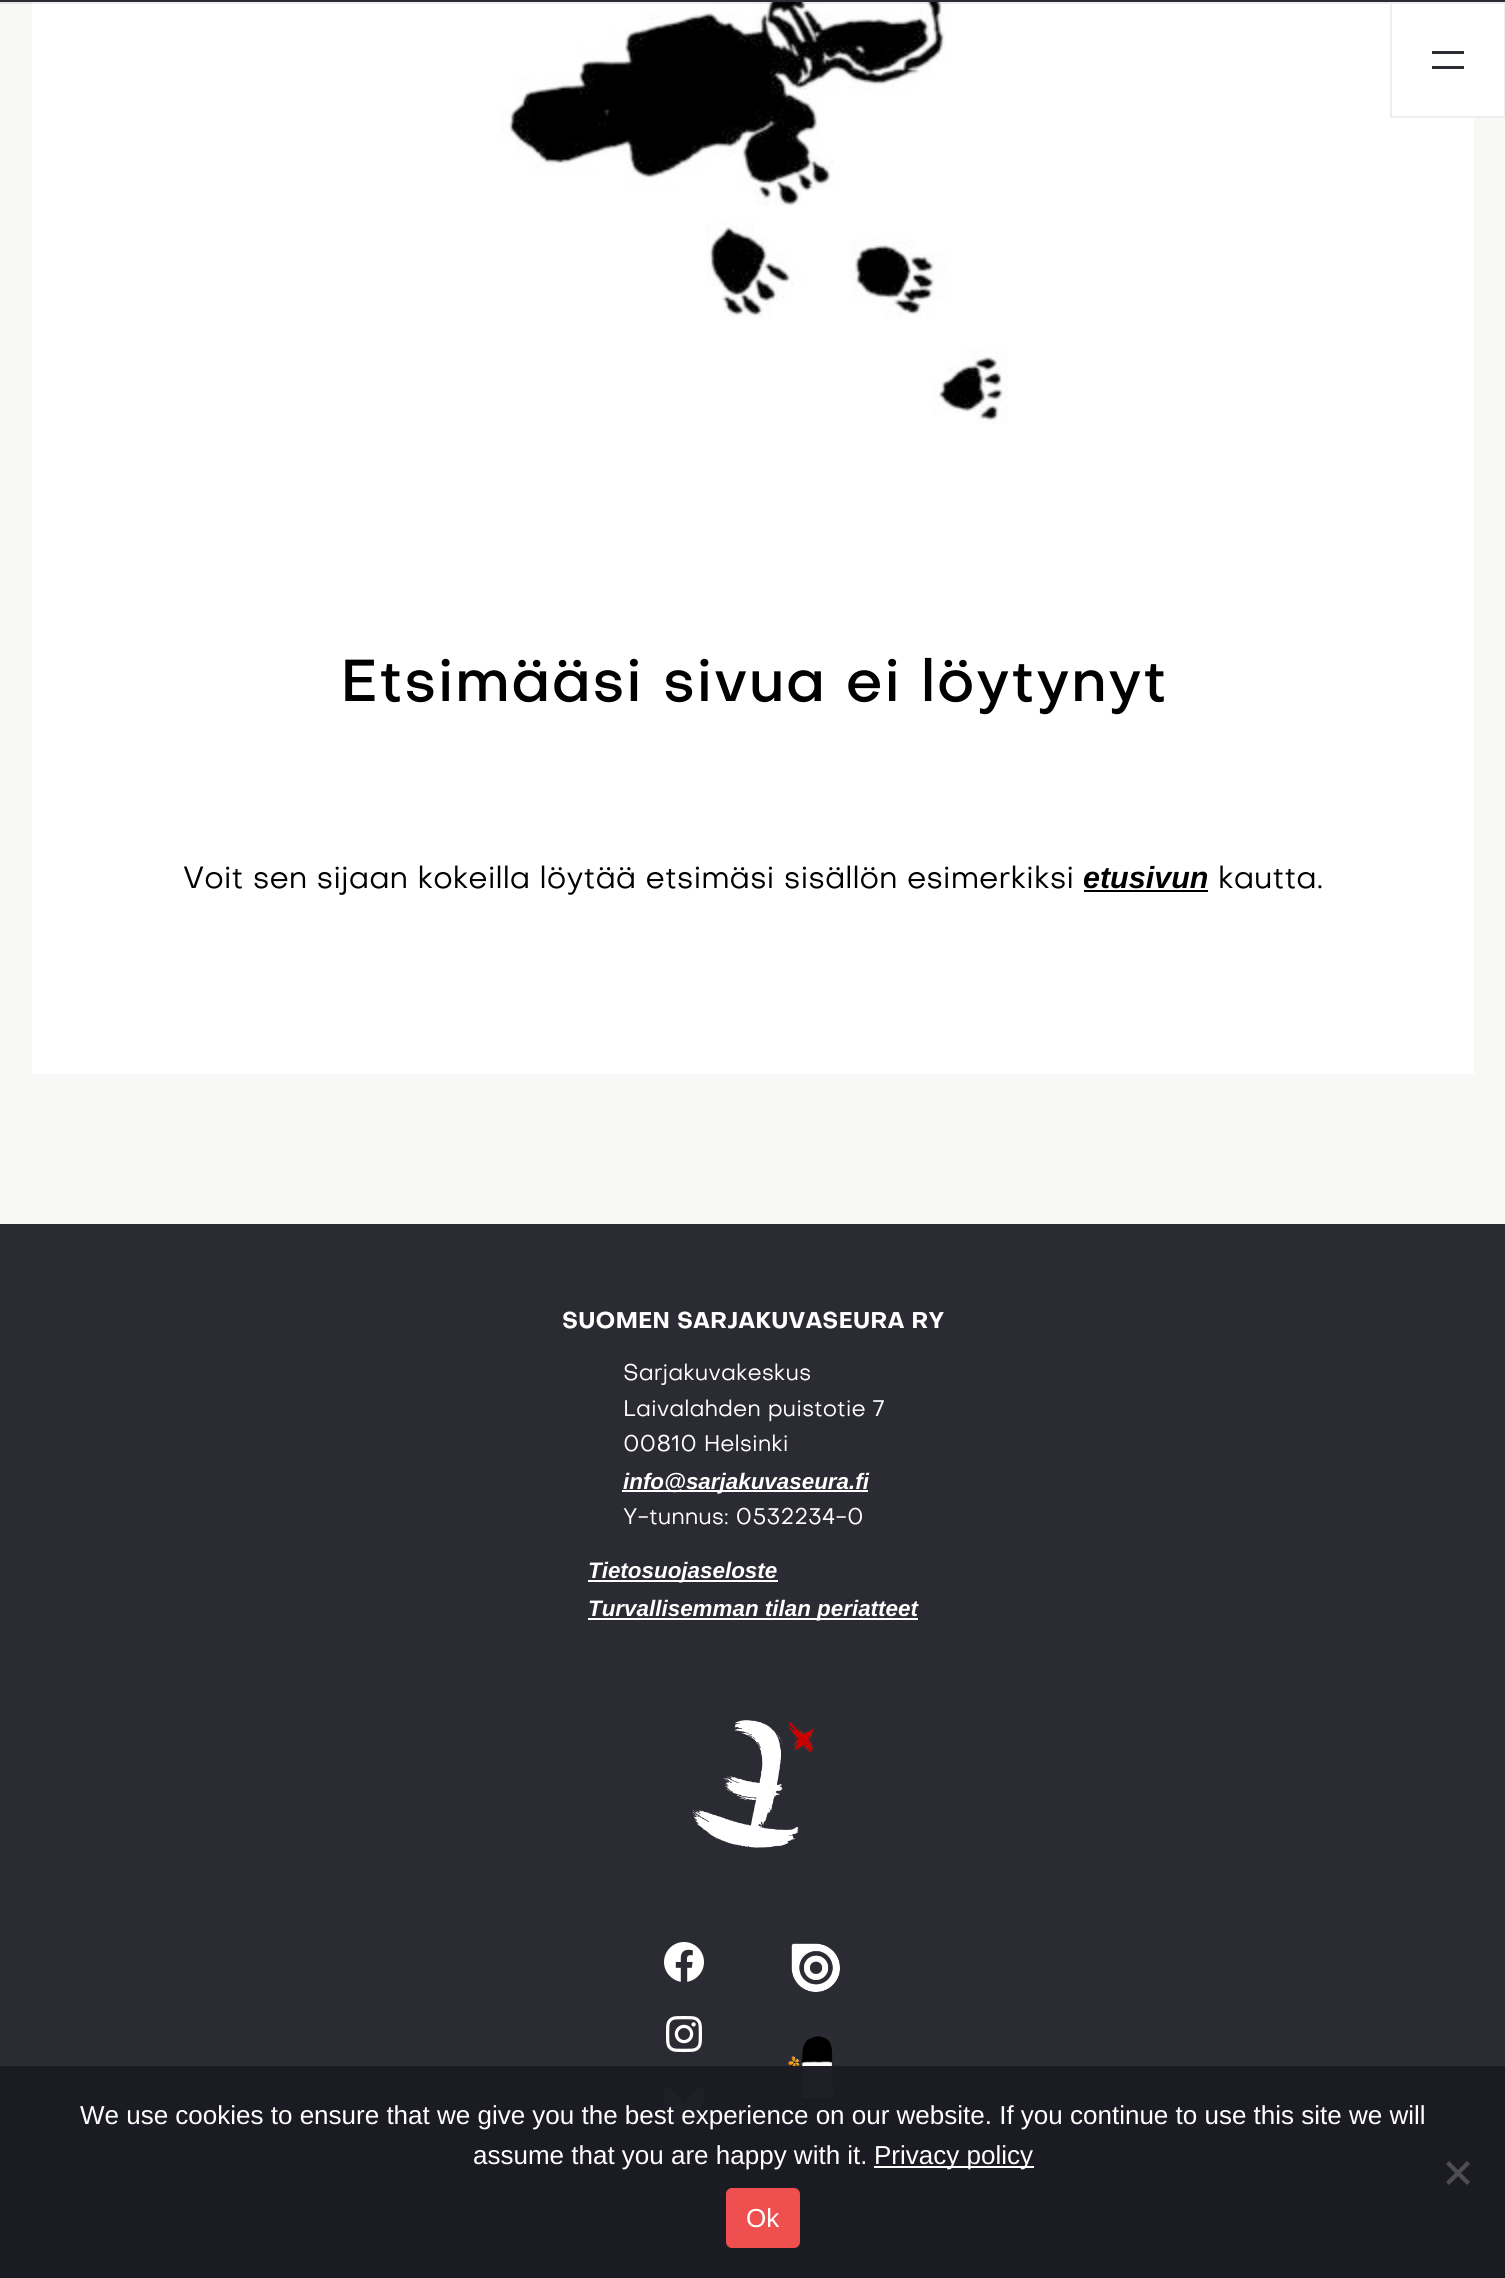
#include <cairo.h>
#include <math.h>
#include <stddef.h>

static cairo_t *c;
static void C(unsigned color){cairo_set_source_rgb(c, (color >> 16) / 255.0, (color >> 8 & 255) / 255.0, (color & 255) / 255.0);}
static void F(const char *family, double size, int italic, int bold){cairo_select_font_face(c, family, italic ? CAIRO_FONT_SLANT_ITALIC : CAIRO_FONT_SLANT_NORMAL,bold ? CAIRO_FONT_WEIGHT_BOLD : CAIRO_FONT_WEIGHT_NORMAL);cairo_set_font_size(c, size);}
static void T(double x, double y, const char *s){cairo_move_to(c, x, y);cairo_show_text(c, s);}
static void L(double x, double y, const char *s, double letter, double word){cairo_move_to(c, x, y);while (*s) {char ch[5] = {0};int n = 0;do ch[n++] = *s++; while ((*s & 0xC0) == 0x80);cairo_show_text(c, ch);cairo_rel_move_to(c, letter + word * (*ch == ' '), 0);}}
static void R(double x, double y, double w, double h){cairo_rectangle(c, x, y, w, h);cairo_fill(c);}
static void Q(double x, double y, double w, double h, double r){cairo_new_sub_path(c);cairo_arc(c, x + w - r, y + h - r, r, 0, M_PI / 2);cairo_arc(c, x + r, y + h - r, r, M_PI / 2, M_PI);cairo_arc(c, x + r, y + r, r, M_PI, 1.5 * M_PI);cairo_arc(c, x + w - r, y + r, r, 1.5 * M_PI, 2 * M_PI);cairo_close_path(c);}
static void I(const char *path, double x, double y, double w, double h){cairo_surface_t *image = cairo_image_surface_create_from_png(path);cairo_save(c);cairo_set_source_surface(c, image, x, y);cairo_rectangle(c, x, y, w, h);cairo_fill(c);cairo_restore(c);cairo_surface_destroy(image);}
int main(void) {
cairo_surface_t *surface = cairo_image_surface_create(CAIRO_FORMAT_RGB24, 1505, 2278);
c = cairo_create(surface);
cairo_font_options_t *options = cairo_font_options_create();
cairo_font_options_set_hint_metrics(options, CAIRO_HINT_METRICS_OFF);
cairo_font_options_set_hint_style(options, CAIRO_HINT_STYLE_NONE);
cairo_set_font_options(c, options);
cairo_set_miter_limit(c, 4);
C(0xf8f8f7);
cairo_paint(c);
C(0x2b2b33);
R(0,0,1505,2);
C(0xffffff);
R(32,2,1442,1072);
I("1.png",498,2,510,422);
cairo_set_source_rgba(c,0,0,0,0.07);
R(0,2,1390,2);
C(0xffffff);
R(1474,4,30,112);
cairo_rectangle(c,1391,3,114,114);
C(0xeeeeee);
cairo_stroke(c);
C(0x2b2b33);
R(1432,51,32,3);
R(1432,66,32,3);
F("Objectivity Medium",58.4,0,0);
C(0x000000);
L(340,701,"Etsimääsi sivua ei löytynyt",1.2,0);
F("Objectivity",30.5,0,0);
T(183,888,"Voit sen sijaan kokeilla löytää etsimäsi sisällön esimerkiksi");
F("Liberation Sans",30.5,1,1);
T(1083,888,"etusivun");
R(1084,890,124,2);
F("Objectivity",30.5,0,0);
T(1218,888,"kautta.");
C(0x2b2b33);
R(0,1224,1505,1054);
F("Objectivity",22.4,0,1);
C(0xffffff);
T(562,1328,"SUOMEN SARJAKUVASEURA RY");
F("Objectivity",22.4,0,0);
T(623,1380,"Sarjakuvakeskus");
T(623,1416,"Laivalahden puistotie 7");
T(623,1451,"00810 Helsinki");
R(622,1490,246,2);
F("Liberation Sans",22.4,1,1);
T(623,1489,"info@sarjakuvaseura.fi");
F("Objectivity",22.4,0,0);
T(623,1524,"Y-tunnus: 0532234-0");
R(588,1580,190,2);
F("Liberation Sans",22.4,1,1);
T(588,1578,"Tietosuojaseloste");
R(588,1618,330,2);
T(588,1616,"Turvallisemman tilan periatteet");
I("2.png",692,1720,122,128);
I("3.png",664,1942,40,40);
I("4.png",666,2016,36,36);
I("5.png",664,2088,40,36);
I("6.png",791,1943,49,49);
I("7.png",787,2036,56,66);
cairo_set_source_rgba(c,0.106,0.106,0.137,0.98);
R(0,2066,1505,212);
F("Liberation Sans",26,0,0);
C(0xffffff);
T(80,2124,"We use cookies to ensure that we give you the best experience on our website. If you continue to use this site we will");
T(473,2164,"assume that you are happy with it.");
R(874,2166,160,2);
T(874,2164,"Privacy policy");
C(0x4e4e52);
cairo_new_path(c);
cairo_move_to(c,1467,2161);
cairo_line_to(c,1470,2164);
cairo_line_to(c,1449,2185);
cairo_line_to(c,1446,2182);
cairo_close_path(c);
cairo_fill(c);
cairo_new_path(c);
cairo_move_to(c,1446,2164);
cairo_line_to(c,1449,2161);
cairo_line_to(c,1470,2182);
cairo_line_to(c,1467,2185);
cairo_close_path(c);
cairo_fill(c);
C(0xef4f4f);
Q(726,2188,74,60,6);
cairo_fill(c);
C(0xffffff);
T(746,2227,"Ok");
cairo_surface_write_to_png(surface, "o.png");
cairo_font_options_destroy(options);
cairo_destroy(c);
cairo_surface_destroy(surface);
return 0;
}
